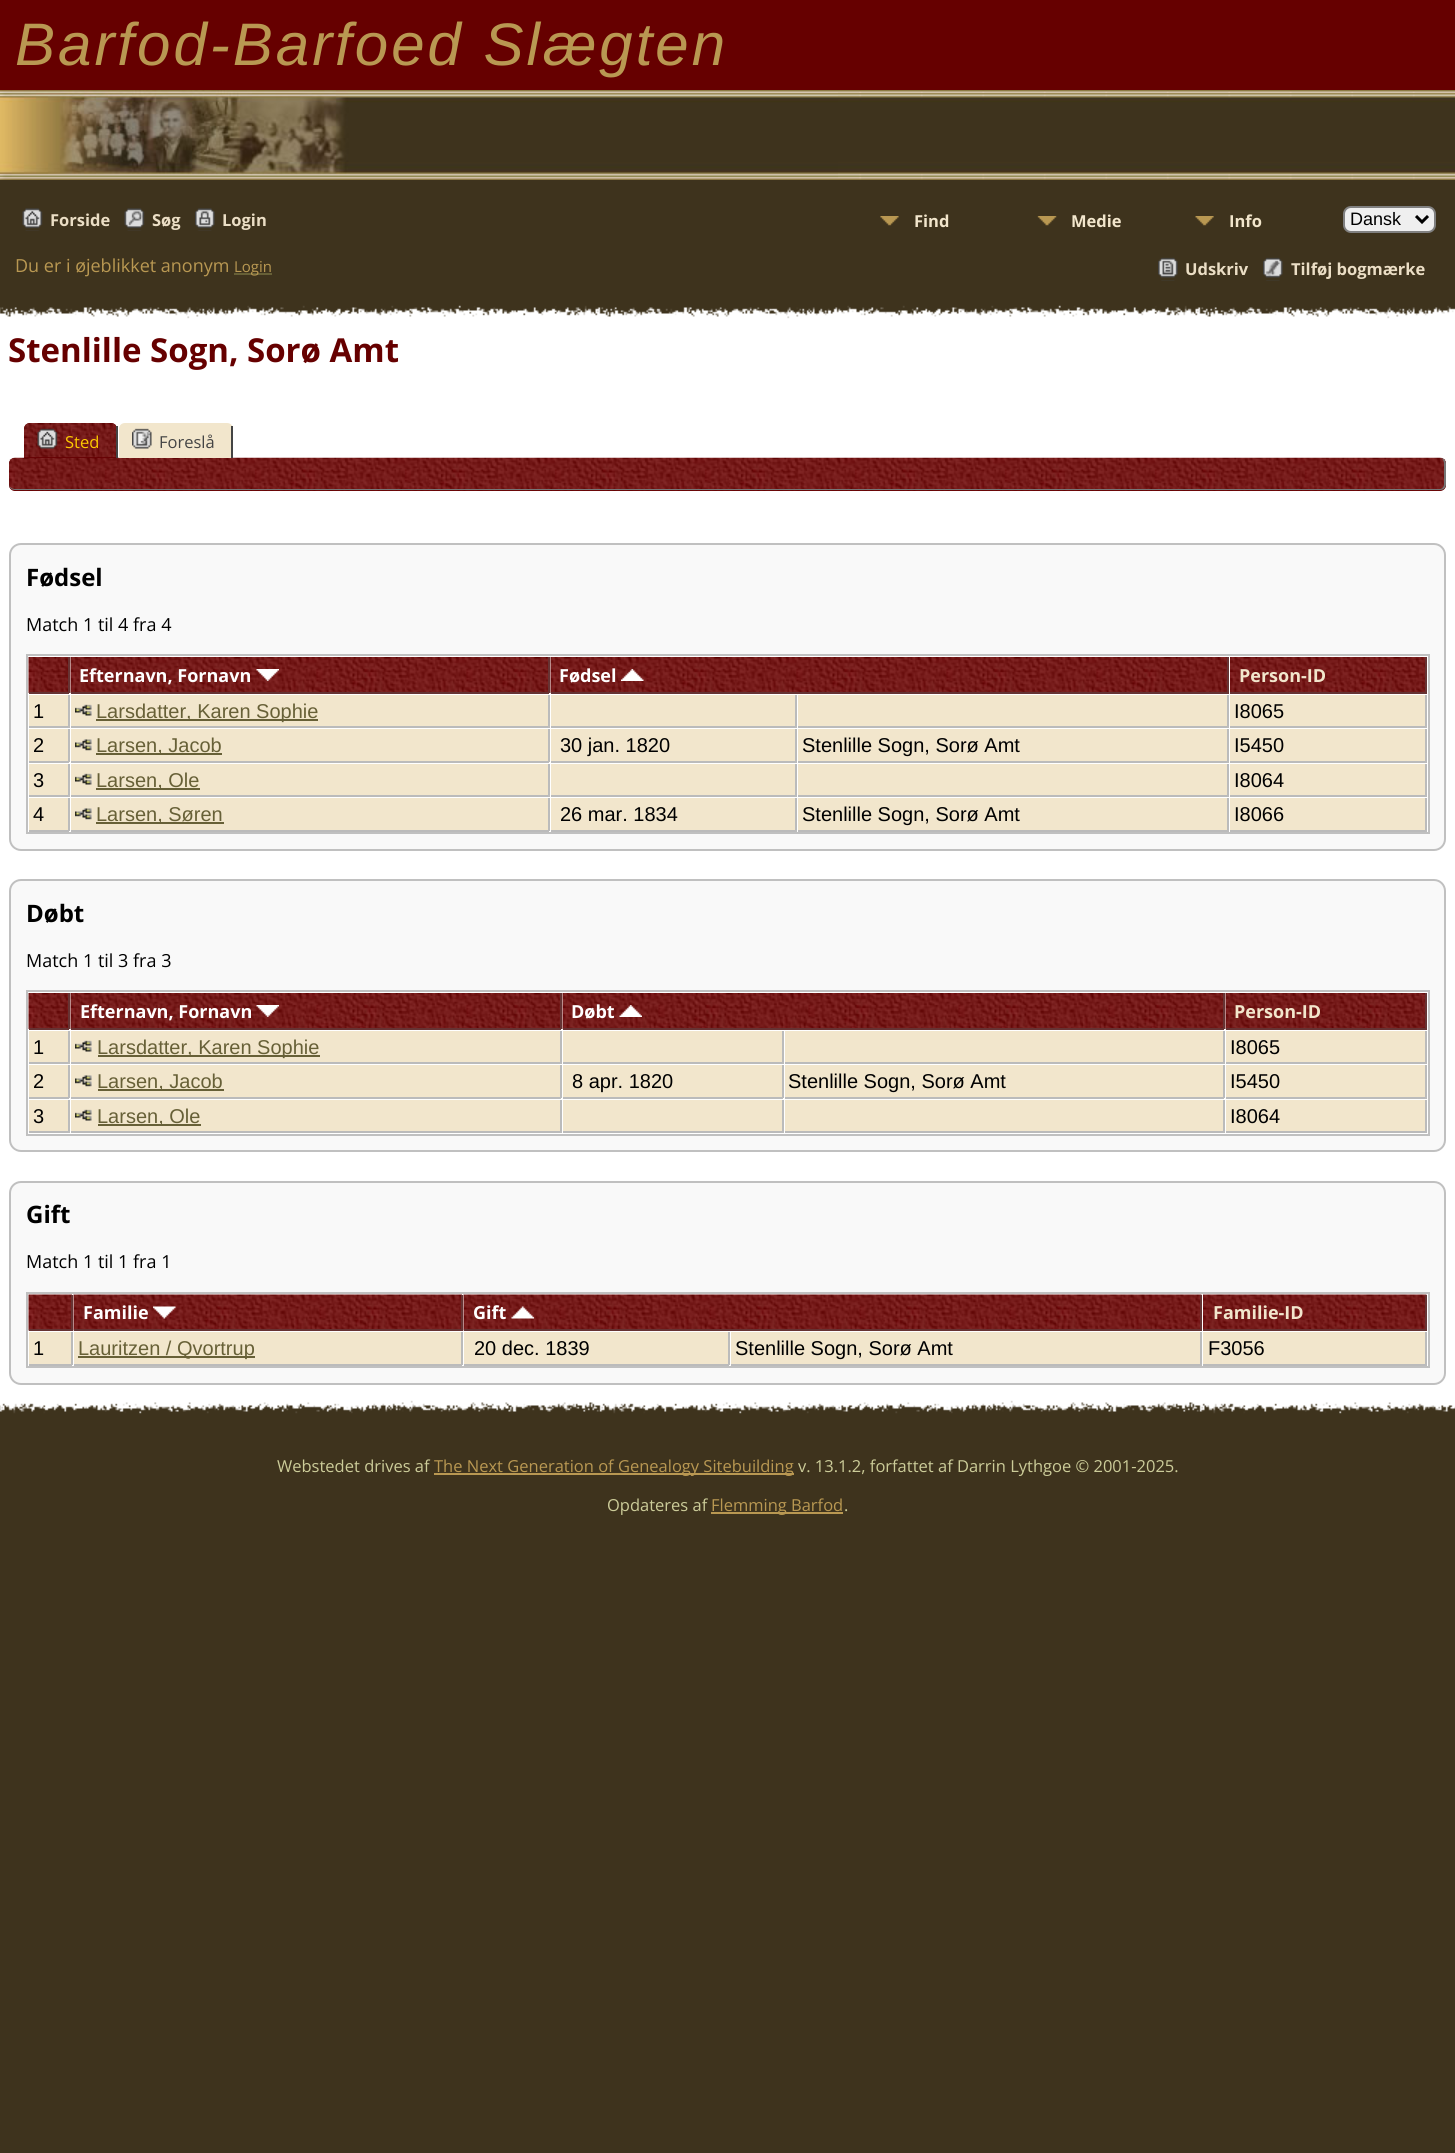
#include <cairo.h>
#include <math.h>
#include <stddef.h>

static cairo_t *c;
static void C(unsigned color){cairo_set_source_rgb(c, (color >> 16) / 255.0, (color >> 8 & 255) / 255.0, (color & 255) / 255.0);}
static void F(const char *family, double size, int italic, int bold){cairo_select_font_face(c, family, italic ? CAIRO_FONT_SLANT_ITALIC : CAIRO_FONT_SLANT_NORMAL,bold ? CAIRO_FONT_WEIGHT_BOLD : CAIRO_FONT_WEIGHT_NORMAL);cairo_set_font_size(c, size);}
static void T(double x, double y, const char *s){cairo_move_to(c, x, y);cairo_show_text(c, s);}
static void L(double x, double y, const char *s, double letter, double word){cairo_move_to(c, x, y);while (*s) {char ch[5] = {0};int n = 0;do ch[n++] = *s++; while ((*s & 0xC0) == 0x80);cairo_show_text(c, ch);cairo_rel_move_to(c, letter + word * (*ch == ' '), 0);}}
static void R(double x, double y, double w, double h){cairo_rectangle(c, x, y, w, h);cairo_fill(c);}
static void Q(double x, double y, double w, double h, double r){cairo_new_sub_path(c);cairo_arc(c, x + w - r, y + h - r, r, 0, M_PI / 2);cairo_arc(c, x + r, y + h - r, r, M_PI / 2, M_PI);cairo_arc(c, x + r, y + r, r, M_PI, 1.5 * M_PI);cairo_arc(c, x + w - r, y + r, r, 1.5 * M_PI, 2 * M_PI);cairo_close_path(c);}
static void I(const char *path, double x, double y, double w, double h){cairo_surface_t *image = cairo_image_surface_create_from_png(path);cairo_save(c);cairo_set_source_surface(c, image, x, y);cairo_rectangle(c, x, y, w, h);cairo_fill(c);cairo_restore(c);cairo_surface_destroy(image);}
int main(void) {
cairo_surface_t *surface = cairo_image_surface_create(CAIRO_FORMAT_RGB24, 1455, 2153);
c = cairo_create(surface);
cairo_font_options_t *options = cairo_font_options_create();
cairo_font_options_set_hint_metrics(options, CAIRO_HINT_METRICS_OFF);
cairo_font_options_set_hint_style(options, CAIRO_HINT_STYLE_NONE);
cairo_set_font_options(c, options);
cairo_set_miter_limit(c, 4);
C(0x3e331d);
cairo_paint(c);
C(0x660000);
R(0,0,1455,90);
F("Liberation Sans",60,1,0);
C(0xb99852);
L(15,65,"Barfod-Barfoed Slægten",3,0);
I("1.png",838,90,617,90);
I("2.png",0,90,838,90);
I("3.png",22,208,21,23);
F("Open Sans",16.5,0,1);
C(0xebdec5);
T(50,226,"Forside");
I("4.png",124,208,21,23);
T(152,226,"Søg");
I("5.png",195,208,20,23);
T(222,226,"Login");
I("6.png",880,216,19,10);
C(0xf2e6cc);
T(914,227,"Find");
I("7.png",1037,216,20,10);
T(1071,227,"Medie");
I("8.png",1195,216,19,10);
T(1229,227,"Info");
C(0xefefef);
Q(1344,207,91,25,7);
cairo_fill_preserve(c);
C(0x808080);
cairo_stroke(c);
cairo_new_path(c);
cairo_move_to(c,1416,216);
cairo_line_to(c,1422,222);
cairo_line_to(c,1428,216);
C(0x000000);
cairo_set_line_width(c,3);
cairo_stroke(c);
F("Liberation Sans",18,0,0);
T(1350,225,"Dansk");
F("Open Sans",18,0,0);
C(0xb99852);
T(15,272,"Du er i øjeblikket anonym");
C(0x676037);
R(234,273,38,2);
F("Open Sans",15,0,0);
C(0xb99852);
T(234,272,"Login");
I("9.png",1158,257,20,24);
F("Open Sans",16.5,0,1);
C(0xebdec5);
T(1185,275,"Udskriv");
I("10.png",1263,257,20,24);
T(1291,275,"Tilføj bogmærke");
I("11.png",0,305,1455,19);
C(0xffffff);
R(0,324,1455,1070);
F("Open Sans",33,0,1);
C(0x660000);
T(8,362,"Stenlille Sogn, Sorø Amt");
C(0x660002);
Q(9,458,1437,33,6);
cairo_fill(c);
I("15.png",9,457,1437,34);
cairo_new_path(c);
cairo_move_to(c,30,423);
cairo_line_to(c,111,423);
cairo_curve_to(c,114.5,423,117,425.5,117,429);
cairo_line_to(c,117,458);
cairo_line_to(c,24,458);
cairo_line_to(c,24,429);
cairo_curve_to(c,24,425.5,26.5,423,30,423);
cairo_close_path(c);
cairo_fill(c);
I("12.png",24,423,92,35);
C(0x444444);
R(116,426,2,32);
I("13.png",37,428,21,21);
F("Open Sans",16.5,0,0);
C(0xffcc00);
T(65,448,"Sted");
C(0xf2e6cc);
cairo_new_path(c);
cairo_move_to(c,125,423);
cairo_line_to(c,227,423);
cairo_curve_to(c,230.5,423,233,425.5,233,429);
cairo_line_to(c,233,458);
cairo_line_to(c,119,458);
cairo_line_to(c,119,429);
cairo_curve_to(c,119,425.5,121.5,423,125,423);
cairo_close_path(c);
cairo_fill(c);
C(0x444444);
R(231,426,2,32);
I("14.png",132,428,20,21);
T(159,448,"Foreslå");
C(0x777777);
cairo_set_fill_rule(c,CAIRO_FILL_RULE_EVEN_ODD);
cairo_new_path(c);
cairo_move_to(c,15,458);
cairo_line_to(c,1440,458);
cairo_curve_to(c,1443,458,1446,460,1446,464);
cairo_line_to(c,1446,484);
cairo_curve_to(c,1446,488,1443,490,1440,490);
cairo_line_to(c,15,490);
cairo_curve_to(c,12,490,9,488,9,484);
cairo_line_to(c,9,464);
cairo_curve_to(c,9,460,12,458,15,458);
cairo_close_path(c);
cairo_move_to(c,15,458);
cairo_line_to(c,1440,458);
cairo_curve_to(c,1442,458,1444,460,1444,464);
cairo_line_to(c,1444,484);
cairo_curve_to(c,1444,487,1442,489,1440,489);
cairo_line_to(c,15,489);
cairo_curve_to(c,12,489,9,487,9,484);
cairo_line_to(c,9,464);
cairo_curve_to(c,9,460,12,458,15,458);
cairo_close_path(c);
cairo_fill(c);
C(0xf9f9f9);
Q(10,544,1435,306,11);
cairo_fill_preserve(c);
C(0xc0c0c0);
cairo_set_line_width(c,2);
cairo_stroke(c);
F("Open Sans",24,0,1);
C(0x000000);
T(26,586,"Fødsel");
F("Open Sans",18,0,0);
T(26,631,"Match 1 til 4 fra 4");
C(0xffffff);
cairo_rectangle(c,27,655,1402,178);
cairo_fill_preserve(c);
C(0xc0c0c0);
cairo_stroke(c);
I("16.png",28,657,40,36);
C(0x663333);
R(68,657,2,36);
R(29,692,40,2);
I("17.png",70,657,478,36);
R(548,657,2,36);
R(71,692,478,2);
F("Open Sans",18,0,1);
C(0xffffff);
T(79,682,"Efternavn, Fornavn");
I("18.png",256,669,23,12);
I("19.png",550,657,677,36);
C(0x663333);
R(1227,657,2,36);
R(551,692,678,2);
C(0xffffff);
T(559,682,"Fødsel");
I("20.png",621,669,23,12);
I("21.png",1230,657,195,35);
C(0x663333);
R(1425,657,2,36);
R(1230,692,197,2);
C(0xf2e6cc);
T(1239,682,"Person-ID");
R(29,695,39,31);
C(0xbbbbbb);
R(68,695,2,33);
R(29,726,40,2);
F("Liberation Sans",20,0,0);
C(0x000000);
T(33,718,"1");
C(0xf2e6cc);
R(71,695,477,31);
C(0xbbbbbb);
R(548,695,2,33);
R(71,726,478,2);
I("22.png",75,704,17,12);
C(0x676037);
R(96,719,222,2);
T(96,718,"Larsdatter, Karen Sophie");
C(0xf2e6cc);
R(551,695,244,31);
C(0xbbbbbb);
R(795,695,2,33);
R(551,726,246,2);
C(0xf2e6cc);
R(798,695,429,31);
C(0xbbbbbb);
R(1227,695,2,33);
R(798,726,431,2);
C(0xf2e6cc);
R(1230,695,195,31);
C(0xbbbbbb);
R(1425,695,2,33);
R(1230,726,197,2);
C(0x000000);
T(1234,718,"I8065");
C(0xf2e6cc);
R(29,729,39,32);
C(0xbbbbbb);
R(68,729,2,33);
R(29,761,40,2);
C(0x000000);
T(33,752,"2");
C(0xf2e6cc);
R(71,729,477,32);
C(0xbbbbbb);
R(548,729,2,33);
R(71,761,478,2);
I("23.png",75,739,17,12);
C(0x676037);
R(96,753,126,2);
T(96,752,"Larsen, Jacob");
C(0xf2e6cc);
R(551,729,244,32);
C(0xbbbbbb);
R(795,729,2,33);
R(551,761,246,2);
C(0x000000);
T(560,752,"30 jan. 1820");
C(0xf2e6cc);
R(798,729,429,32);
C(0xbbbbbb);
R(1227,729,2,33);
R(798,761,431,2);
C(0x000000);
T(802,752,"Stenlille Sogn, Sorø Amt");
C(0xf2e6cc);
R(1230,729,195,32);
C(0xbbbbbb);
R(1425,729,2,33);
R(1230,761,197,2);
C(0x000000);
T(1234,752,"I5450");
C(0xf2e6cc);
R(29,764,39,31);
C(0xbbbbbb);
R(68,764,2,33);
R(29,795,40,2);
C(0x000000);
T(33,787,"3");
C(0xf2e6cc);
R(71,764,477,31);
C(0xbbbbbb);
R(548,764,2,33);
R(71,795,478,2);
I("22.png",75,773,17,12);
C(0x676037);
R(96,788,104,2);
T(96,787,"Larsen, Ole");
C(0xf2e6cc);
R(551,764,244,31);
C(0xbbbbbb);
R(795,764,2,33);
R(551,795,246,2);
C(0xf2e6cc);
R(798,764,429,31);
C(0xbbbbbb);
R(1227,764,2,33);
R(798,795,431,2);
C(0xf2e6cc);
R(1230,764,195,31);
C(0xbbbbbb);
R(1425,764,2,33);
R(1230,795,197,2);
C(0x000000);
T(1234,787,"I8064");
C(0xf2e6cc);
R(29,798,39,32);
C(0xbbbbbb);
R(68,798,2,33);
R(29,830,40,2);
C(0x000000);
T(33,821,"4");
C(0xf2e6cc);
R(71,798,477,32);
C(0xbbbbbb);
R(548,798,2,33);
R(71,830,478,2);
I("23.png",75,808,17,12);
C(0x676037);
R(96,822,128,2);
T(96,821,"Larsen, Søren");
C(0xf2e6cc);
R(551,798,244,32);
C(0xbbbbbb);
R(795,798,2,33);
R(551,830,246,2);
C(0x000000);
T(560,821,"26 mar. 1834");
C(0xf2e6cc);
R(798,798,429,32);
C(0xbbbbbb);
R(1227,798,2,33);
R(798,830,431,2);
C(0x000000);
T(802,821,"Stenlille Sogn, Sorø Amt");
C(0xf2e6cc);
R(1230,798,195,32);
C(0xbbbbbb);
R(1425,798,2,33);
R(1230,830,197,2);
C(0x000000);
T(1234,821,"I8066");
C(0xf9f9f9);
Q(10,880,1435,271,11);
cairo_fill_preserve(c);
C(0xc0c0c0);
cairo_stroke(c);
F("Open Sans",24,0,1);
C(0x000000);
T(26,922,"Døbt");
F("Open Sans",18,0,0);
T(26,967,"Match 1 til 3 fra 3");
C(0xffffff);
cairo_rectangle(c,27,991,1402,144);
cairo_fill_preserve(c);
C(0xc0c0c0);
cairo_stroke(c);
I("24.png",28,993,40,36);
C(0x663333);
R(68,993,2,36);
R(29,1028,40,2);
I("25.png",70,993,490,36);
R(560,993,2,36);
R(71,1028,490,2);
F("Open Sans",18,0,1);
C(0xffffff);
T(80,1018,"Efternavn, Fornavn");
I("26.png",256,1005,23,12);
I("27.png",562,993,661,36);
C(0x663333);
R(1223,993,2,36);
R(563,1028,661,2);
C(0xffffff);
T(571,1018,"Døbt");
I("28.png",619,1005,23,12);
I("29.png",1225,993,200,36);
C(0x663333);
R(1425,993,2,36);
R(1226,1028,201,2);
C(0xf2e6cc);
T(1234,1018,"Person-ID");
R(29,1031,39,31);
C(0xbbbbbb);
R(68,1031,2,33);
R(29,1062,40,2);
F("Liberation Sans",20,0,0);
C(0x000000);
T(33,1054,"1");
C(0xf2e6cc);
R(71,1031,489,31);
C(0xbbbbbb);
R(560,1031,2,33);
R(71,1062,490,2);
I("22.png",75,1040,17,12);
C(0x676037);
R(98,1055,222,2);
T(97,1054,"Larsdatter, Karen Sophie");
C(0xf2e6cc);
R(563,1031,219,31);
C(0xbbbbbb);
R(782,1031,2,33);
R(563,1062,220,2);
C(0xf2e6cc);
R(785,1031,438,31);
C(0xbbbbbb);
R(1223,1031,2,33);
R(785,1062,439,2);
C(0xf2e6cc);
R(1226,1031,199,31);
C(0xbbbbbb);
R(1425,1031,2,33);
R(1226,1062,201,2);
C(0x000000);
T(1230,1054,"I8065");
C(0xf2e6cc);
R(29,1065,39,32);
C(0xbbbbbb);
R(68,1065,2,33);
R(29,1097,40,2);
C(0x000000);
T(33,1088,"2");
C(0xf2e6cc);
R(71,1065,489,32);
C(0xbbbbbb);
R(560,1065,2,33);
R(71,1097,490,2);
I("23.png",75,1075,17,12);
C(0x676037);
R(98,1089,126,2);
T(97,1088,"Larsen, Jacob");
C(0xf2e6cc);
R(563,1065,219,32);
C(0xbbbbbb);
R(782,1065,2,33);
R(563,1097,220,2);
C(0x000000);
T(572,1088,"8 apr. 1820");
C(0xf2e6cc);
R(785,1065,438,32);
C(0xbbbbbb);
R(1223,1065,2,33);
R(785,1097,439,2);
C(0x000000);
T(788,1088,"Stenlille Sogn, Sorø Amt");
C(0xf2e6cc);
R(1226,1065,199,32);
C(0xbbbbbb);
R(1425,1065,2,33);
R(1226,1097,201,2);
C(0x000000);
T(1230,1088,"I5450");
C(0xf2e6cc);
R(29,1100,39,31);
C(0xbbbbbb);
R(68,1100,2,33);
R(29,1131,40,2);
C(0x000000);
T(33,1123,"3");
C(0xf2e6cc);
R(71,1100,489,31);
C(0xbbbbbb);
R(560,1100,2,33);
R(71,1131,490,2);
I("22.png",75,1109,17,12);
C(0x676037);
R(98,1124,103,2);
T(97,1123,"Larsen, Ole");
C(0xf2e6cc);
R(563,1100,219,31);
C(0xbbbbbb);
R(782,1100,2,33);
R(563,1131,220,2);
C(0xf2e6cc);
R(785,1100,438,31);
C(0xbbbbbb);
R(1223,1100,2,33);
R(785,1131,439,2);
C(0xf2e6cc);
R(1226,1100,199,31);
C(0xbbbbbb);
R(1425,1100,2,33);
R(1226,1131,201,2);
C(0x000000);
T(1230,1123,"I8064");
C(0xf9f9f9);
Q(10,1182,1435,202,11);
cairo_fill_preserve(c);
C(0xc0c0c0);
cairo_stroke(c);
F("Open Sans",24,0,1);
C(0x000000);
T(26,1223,"Gift");
F("Open Sans",18,0,0);
T(26,1268,"Match 1 til 1 fra 1");
C(0xffffff);
cairo_rectangle(c,27,1293,1402,74);
cairo_fill_preserve(c);
C(0xc0c0c0);
cairo_stroke(c);
I("30.png",28,1294,44,37);
C(0x663333);
R(71,1295,2,36);
R(29,1329,43,2);
I("31.png",73,1294,389,37);
R(461,1295,2,36);
R(74,1329,388,2);
F("Open Sans",18,0,1);
C(0xffffff);
T(83,1319,"Familie");
I("32.png",153,1306,23,13);
I("33.png",463,1294,739,37);
C(0x663333);
R(1200,1295,2,36);
R(464,1329,738,2);
C(0xffffff);
T(473,1319,"Gift");
I("34.png",511,1306,23,13);
I("35.png",1203,1294,224,35);
C(0x663333);
R(1425,1295,2,36);
R(1203,1329,224,2);
C(0xf2e6cc);
T(1213,1319,"Familie-ID");
R(29,1332,42,32);
C(0xbbbbbb);
R(71,1332,2,33);
R(29,1364,43,2);
F("Liberation Sans",20,0,0);
C(0x000000);
T(33,1355,"1");
C(0xf2e6cc);
R(74,1332,387,32);
C(0xbbbbbb);
R(461,1332,2,33);
R(74,1364,388,2);
C(0x676037);
R(78,1356,177,2);
T(78,1355,"Lauritzen / Qvortrup");
C(0xf2e6cc);
R(464,1332,264,32);
C(0xbbbbbb);
R(728,1332,2,33);
R(464,1364,265,2);
C(0x000000);
T(474,1355,"20 dec. 1839");
C(0xf2e6cc);
R(731,1332,469,32);
C(0xbbbbbb);
R(1200,1332,2,33);
R(731,1364,471,2);
C(0x000000);
T(735,1355,"Stenlille Sogn, Sorø Amt");
C(0xf2e6cc);
R(1203,1332,222,32);
C(0xbbbbbb);
R(1425,1332,2,33);
R(1203,1364,224,2);
C(0x000000);
T(1208,1355,"F3056");
I("36.png",0,1394,1455,20);
F("Open Sans",16.5,0,0);
C(0xcccc99);
T(277,1472,"Webstedet drives af");
C(0xb99852);
R(434,1473,360,2);
T(434,1472,"The Next Generation of Genealogy Sitebuilding");
C(0xcccc99);
T(798,1472,"v. 13.1.2, forfattet af Darrin Lythgoe © 2001-2025.");
T(607,1511,"Opdateres af");
C(0xb99852);
R(711,1512,132,2);
T(711,1511,"Flemming Barfod");
C(0xcccc99);
T(844,1511,".");
cairo_surface_write_to_png(surface, "o.png");
cairo_font_options_destroy(options);
cairo_destroy(c);
cairo_surface_destroy(surface);
return 0;
}
